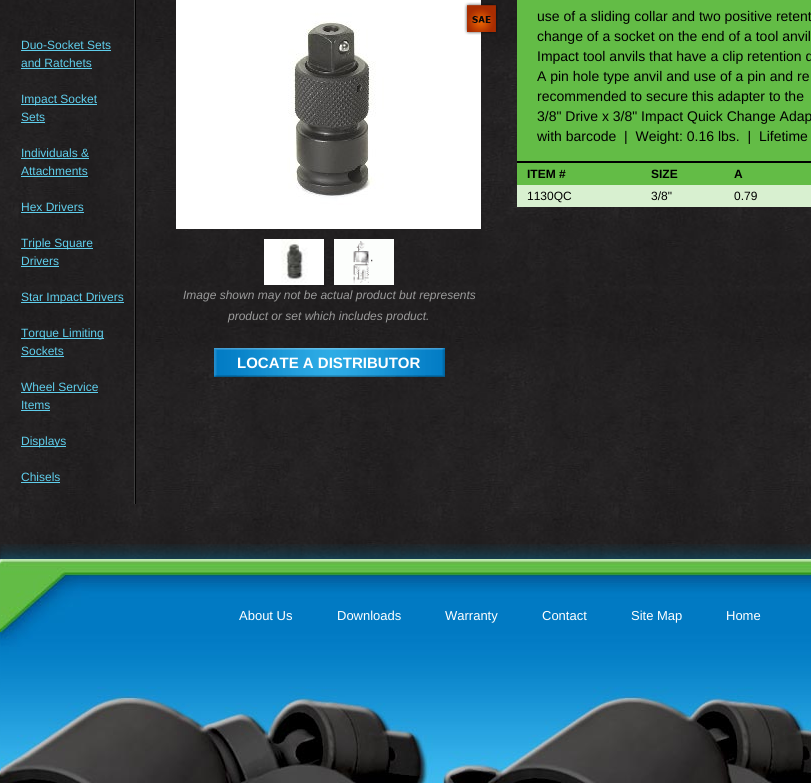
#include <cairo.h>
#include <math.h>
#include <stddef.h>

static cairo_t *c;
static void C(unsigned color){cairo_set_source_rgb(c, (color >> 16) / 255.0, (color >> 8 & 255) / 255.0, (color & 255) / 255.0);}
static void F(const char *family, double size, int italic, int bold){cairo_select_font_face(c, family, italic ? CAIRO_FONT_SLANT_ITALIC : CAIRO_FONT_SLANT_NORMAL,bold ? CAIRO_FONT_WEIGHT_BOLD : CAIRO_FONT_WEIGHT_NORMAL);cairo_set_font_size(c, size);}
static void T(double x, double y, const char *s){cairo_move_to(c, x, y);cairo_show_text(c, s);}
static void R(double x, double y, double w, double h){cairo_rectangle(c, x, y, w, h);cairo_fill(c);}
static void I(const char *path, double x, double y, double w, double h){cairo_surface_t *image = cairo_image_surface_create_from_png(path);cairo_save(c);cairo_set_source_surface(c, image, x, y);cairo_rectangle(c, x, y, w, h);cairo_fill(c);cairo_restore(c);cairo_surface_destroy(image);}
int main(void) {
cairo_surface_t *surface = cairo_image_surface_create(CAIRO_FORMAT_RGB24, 811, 783);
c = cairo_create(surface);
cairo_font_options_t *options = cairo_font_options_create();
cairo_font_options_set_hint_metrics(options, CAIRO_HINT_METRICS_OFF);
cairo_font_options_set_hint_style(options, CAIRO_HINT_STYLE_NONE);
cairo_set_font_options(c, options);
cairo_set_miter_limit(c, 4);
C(0xffffff);
cairo_paint(c);
I("1.png",0,414,811,146);
I("2.png",0,0,811,414);
I("3.png",134,0,2,504);
F("Liberation Sans",12,0,0);
C(0x5fceec);
T(21,49,"Duo-Socket Sets");
R(21,50,90,1);
T(21,67,"and Ratchets");
R(21,68,71,1);
R(21,104,76,1);
T(21,103,"Impact Socket");
T(21,121,"Sets");
R(21,122,24,1);
T(21,157,"Individuals &");
R(21,158,68,1);
T(21,175,"Attachments");
R(21,176,67,1);
T(21,211,"Hex Drivers");
R(21,212,63,1);
R(21,248,72,1);
T(21,247,"Triple Square");
T(21,265,"Drivers");
R(21,266,38,1);
R(21,302,103,1);
T(21,301,"Star Impact Drivers");
R(21,338,83,1);
T(21,337,"Torque Limiting");
T(21,355,"Sockets");
R(21,356,43,1);
T(21,391,"Wheel Service");
R(21,392,77,1);
T(21,409,"Items");
R(21,410,29,1);
R(21,446,45,1);
T(21,445,"Displays");
T(21,481,"Chisels");
R(21,482,39,1);
C(0x63bc46);
R(517,0,294,161);
C(0x000000);
R(517,161,294,2);
F("Liberation Sans",14,0,0);
T(537,21,"use of a sliding collar and two positive retent");
T(537,41,"change of a socket on the end of a tool anvil");
T(537,61,"Impact tool anvils that have a clip retention d");
T(537,81,"A pin hole type anvil and use of a pin and re");
T(537,101,"recommended to secure this adapter to the");
T(537,121,"3/8\" Drive x 3/8\" Impact Quick Change Adap");
T(537,141,"with barcode");
T(624,141,"|  Weight: 0.16 lbs.  |  Lifetime");
C(0x63bc46);
R(517,163,294,22);
F("Liberation Sans",12,0,1);
C(0x000000);
T(527,178,"ITEM #");
T(651,178,"SIZE");
T(734,178,"A");
C(0xd8f0d0);
R(517,185,294,22);
F("Liberation Sans",12,0,0);
C(0x000000);
T(527,200,"1130QC");
T(651,200,"3/8\"");
T(734,200,"0.79");
I("4.png",176,0,305,229);
I("5.png",464,2,34,33);
I("6.png",264,239,60,46);
I("7.png",334,239,60,46);
F("Liberation Sans",12,1,0);
C(0x9a9a9a);
T(183,299,"Image shown may not be actual product but represents");
T(228,320,"product or set which includes product.");
I("8.png",214,348,231,29);
F("Liberation Sans",15,0,1);
C(0xffffff);
T(237,368,"LOCATE A DISTRIBUTOR");
I("9.png",1,544,810,15);
I("10.png",1,559,810,224);
F("Liberation Sans",13,0,0);
T(239,620,"About Us");
T(337,620,"Downloads");
T(445,620,"Warranty");
T(542,620,"Contact");
T(631,620,"Site Map");
T(726,620,"Home");
I("11.png",0,630,1,2);
I("12.png",0,544,1,86);
I("13.png",0,632,1,151);
cairo_surface_write_to_png(surface, "o.png");
cairo_font_options_destroy(options);
cairo_destroy(c);
cairo_surface_destroy(surface);
return 0;
}
